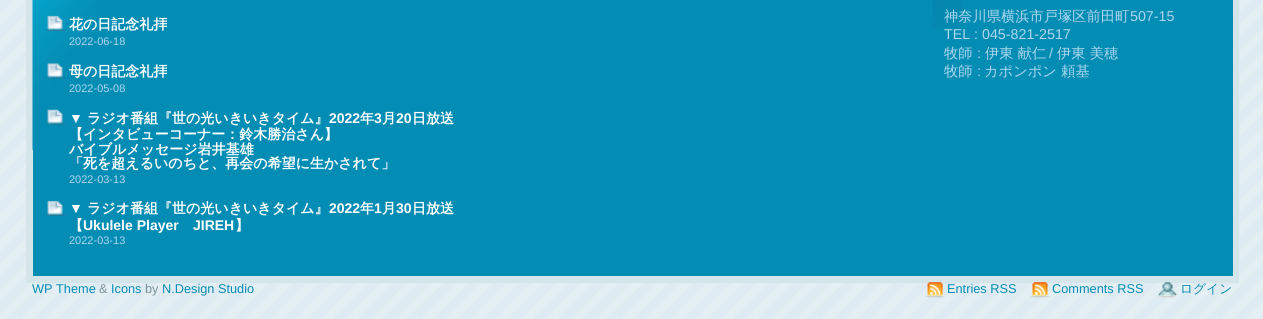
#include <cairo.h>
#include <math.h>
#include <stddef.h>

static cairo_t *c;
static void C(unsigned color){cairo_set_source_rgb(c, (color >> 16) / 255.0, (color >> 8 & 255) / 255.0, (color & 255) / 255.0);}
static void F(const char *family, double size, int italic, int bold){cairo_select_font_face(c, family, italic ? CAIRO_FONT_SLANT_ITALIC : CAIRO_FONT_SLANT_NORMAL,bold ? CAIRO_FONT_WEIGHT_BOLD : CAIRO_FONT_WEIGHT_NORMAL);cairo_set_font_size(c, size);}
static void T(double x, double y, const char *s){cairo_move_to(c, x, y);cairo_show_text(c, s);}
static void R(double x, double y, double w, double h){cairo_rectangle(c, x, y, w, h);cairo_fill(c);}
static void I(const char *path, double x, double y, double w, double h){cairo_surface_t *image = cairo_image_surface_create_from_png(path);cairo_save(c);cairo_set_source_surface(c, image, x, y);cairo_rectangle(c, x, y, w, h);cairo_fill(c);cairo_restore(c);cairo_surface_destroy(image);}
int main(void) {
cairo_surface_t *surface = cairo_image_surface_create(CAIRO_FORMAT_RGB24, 1263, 319);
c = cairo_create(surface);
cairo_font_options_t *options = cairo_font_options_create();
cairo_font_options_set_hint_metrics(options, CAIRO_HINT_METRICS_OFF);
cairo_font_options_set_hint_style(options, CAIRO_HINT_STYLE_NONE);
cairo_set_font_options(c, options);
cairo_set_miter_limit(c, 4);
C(0xffffff);
cairo_paint(c);
I("1.png",0,0,1263,319);
C(0xd5e6eb);
R(1233,0,6,283);
R(26,276,1213,7);
R(26,0,7,283);
C(0x048db4);
R(33,0,1200,276);
I("2.png",32,0,64,150);
I("3.png",45,15,21,16);
F("WenQuanYi Zen Hei",14,0,1);
C(0xffffff);
T(69,29,"花の日記念礼拝");
F("Liberation Sans",11,0,0);
C(0xacd7ee);
T(69,45,"2022-06-18");
I("4.png",45,63,21,16);
F("WenQuanYi Zen Hei",14,0,1);
C(0xffffff);
T(69,76,"母の日記念礼拝");
F("Liberation Sans",11,0,0);
C(0xacd7ee);
T(69,92,"2022-05-08");
I("5.png",45,109,21,16);
F("Liberation Sans",14,0,1);
C(0xffffff);
T(69,123,"▼");
F("WenQuanYi Zen Hei",14,0,1);
T(87,123,"ラジオ番組『世の光いきいきタイム』");
F("Liberation Sans",14,0,1);
T(329,123,"2022");
F("WenQuanYi Zen Hei",14,0,1);
T(360,123,"年");
F("Liberation Sans",14,0,1);
T(374,123,"3");
F("WenQuanYi Zen Hei",14,0,1);
T(382,123,"月");
F("Liberation Sans",14,0,1);
T(396,123,"20");
F("WenQuanYi Zen Hei",14,0,1);
T(412,123,"日放送");
T(69,139,"【インタビューコーナー：鈴木勝治さん】");
T(69,154,"バイブルメッセージ岩井基雄");
T(69,168,"「死を超えるいのちと、再会の希望に生かされて」");
F("Liberation Sans",11,0,0);
C(0xacd7ee);
T(69,183,"2022-03-13");
I("6.png",45,200,21,16);
F("Liberation Sans",14,0,1);
C(0xffffff);
T(69,213,"▼");
F("WenQuanYi Zen Hei",14,0,1);
T(87,213,"ラジオ番組『世の光いきいきタイム』");
F("Liberation Sans",14,0,1);
T(329,213,"2022");
F("WenQuanYi Zen Hei",14,0,1);
T(360,213,"年");
F("Liberation Sans",14,0,1);
T(374,213,"1");
F("WenQuanYi Zen Hei",14,0,1);
T(382,213,"月");
F("Liberation Sans",14,0,1);
T(396,213,"30");
F("WenQuanYi Zen Hei",14,0,1);
T(412,213,"日放送");
T(69,230,"【");
F("Liberation Sans",14,0,1);
T(83,230,"Ukulele Player");
T(193,230,"JIREH");
F("WenQuanYi Zen Hei",14,0,1);
T(235,230,"】");
F("Liberation Sans",11,0,0);
C(0xacd7ee);
T(69,244,"2022-03-13");
I("7.png",932,0,31,29);
F("WenQuanYi Zen Hei Medium",14.25,0,0);
T(944,21,"神奈川県横浜市戸塚区前田町");
F("Liberation Sans",14.25,0,0);
T(1130,21,"507-15");
T(944,39,"TEL : 045-821-2517");
F("WenQuanYi Zen Hei Medium",14.25,0,0);
T(944,58,"牧師");
F("Liberation Sans",14.25,0,0);
T(977,58,":");
F("WenQuanYi Zen Hei Medium",14.25,0,0);
T(985,58,"伊東 献仁");
F("Liberation Sans",14.25,0,0);
T(1049,58,"/");
F("WenQuanYi Zen Hei Medium",14.25,0,0);
T(1057,58,"伊東 美穂");
T(944,76,"牧師");
F("Liberation Sans",14.25,0,0);
T(977,76,":");
F("WenQuanYi Zen Hei Medium",14.25,0,0);
T(984,76,"カポンポン 頼基");
F("Liberation Sans",12.75,0,0);
C(0x048db4);
T(32,293,"WP Theme");
C(0x7a9299);
T(99,293,"&");
C(0x048db4);
T(111,293,"Icons");
C(0x7a9299);
T(145,293,"by");
C(0x048db4);
T(162,293,"N.Design Studio");
I("8.png",925,282,20,16);
T(947,293,"Entries RSS");
I("9.png",1030,282,20,16);
T(1052,293,"Comments RSS");
I("10.png",1157,282,20,16);
F("WenQuanYi Zen Hei Medium",12.75,0,0);
T(1180,293,"ログイン");
cairo_surface_write_to_png(surface, "o.png");
cairo_font_options_destroy(options);
cairo_destroy(c);
cairo_surface_destroy(surface);
return 0;
}
